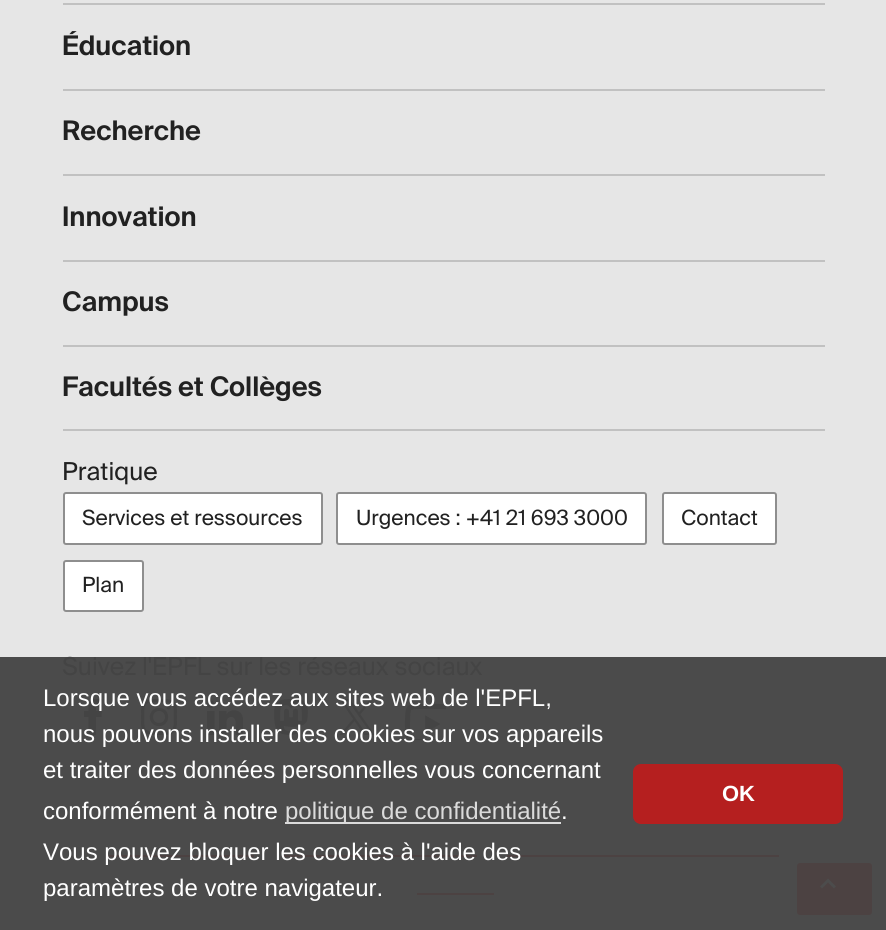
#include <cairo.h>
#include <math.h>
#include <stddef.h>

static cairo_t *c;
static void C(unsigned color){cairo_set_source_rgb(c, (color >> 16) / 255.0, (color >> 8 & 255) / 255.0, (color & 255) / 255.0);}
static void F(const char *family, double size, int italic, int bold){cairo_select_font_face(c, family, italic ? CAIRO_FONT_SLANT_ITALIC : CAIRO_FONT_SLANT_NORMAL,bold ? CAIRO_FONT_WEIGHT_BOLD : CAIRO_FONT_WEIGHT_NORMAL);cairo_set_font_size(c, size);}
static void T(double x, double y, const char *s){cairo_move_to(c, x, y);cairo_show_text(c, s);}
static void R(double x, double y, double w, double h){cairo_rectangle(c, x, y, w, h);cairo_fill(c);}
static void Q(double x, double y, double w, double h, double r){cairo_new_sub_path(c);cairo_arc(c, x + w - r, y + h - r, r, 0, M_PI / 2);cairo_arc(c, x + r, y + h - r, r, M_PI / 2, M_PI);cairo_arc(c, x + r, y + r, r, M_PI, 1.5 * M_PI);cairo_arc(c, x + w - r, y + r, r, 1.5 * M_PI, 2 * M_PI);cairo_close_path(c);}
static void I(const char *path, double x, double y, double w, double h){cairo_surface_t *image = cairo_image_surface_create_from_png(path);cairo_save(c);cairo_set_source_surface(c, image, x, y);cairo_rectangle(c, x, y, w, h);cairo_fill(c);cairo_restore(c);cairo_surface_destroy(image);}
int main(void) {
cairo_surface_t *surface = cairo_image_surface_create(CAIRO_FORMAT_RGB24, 886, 930);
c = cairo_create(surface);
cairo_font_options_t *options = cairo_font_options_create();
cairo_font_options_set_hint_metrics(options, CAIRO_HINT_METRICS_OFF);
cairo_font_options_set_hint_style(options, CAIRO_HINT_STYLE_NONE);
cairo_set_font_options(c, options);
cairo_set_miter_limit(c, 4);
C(0xe6e6e6);
cairo_paint(c);
C(0x4b4b4b);
R(0,657,886,273);
C(0xc1c1c1);
R(63,3,762,2);
F("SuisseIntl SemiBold",27,0,0);
C(0x212121);
T(62,55,"Éducation");
C(0xc1c1c1);
R(63,89,762,2);
C(0x212121);
T(62,140,"Recherche");
C(0xc1c1c1);
R(63,174,762,2);
C(0x212121);
T(62,226,"Innovation");
C(0xc1c1c1);
R(63,260,762,2);
C(0x212121);
T(62,311,"Campus");
C(0xc1c1c1);
R(63,429,762,2);
R(63,345,762,2);
C(0x212121);
T(62,396,"Facultés et Collèges");
F("SuisseIntl",24.75,0,0);
T(62,480,"Pratique");
C(0xffffff);
Q(64,493,258,51,2);
cairo_fill_preserve(c);
C(0x8e8e8e);
cairo_stroke(c);
F("SuisseIntl",21,0,0);
C(0x212121);
T(82,525,"Services et ressources");
C(0xffffff);
Q(337,493,309,51,2);
cairo_fill_preserve(c);
C(0x8e8e8e);
cairo_stroke(c);
C(0x212121);
T(356,525,"Urgences : +41 21 693 3000");
C(0xffffff);
Q(663,493,113,51,2);
cairo_fill_preserve(c);
C(0x8e8e8e);
cairo_stroke(c);
C(0x212121);
T(681,525,"Contact");
C(0xffffff);
Q(64,561,79,50,2);
cairo_fill_preserve(c);
C(0x8e8e8e);
cairo_stroke(c);
C(0x212121);
T(82,592,"Plan");
F("SuisseIntl",24.75,0,0);
C(0x444444);
T(62,675,"Suivez l'EPFL sur les réseaux sociaux");
I("1.png",84,699,18,36);
I("2.png",141,699,36,36);
I("3.png",207,700,36,35);
I("4.png",274,699,34,36);
I("5.png",339,699,36,36);
I("6.png",404,703,42,37);
C(0x4c4242);
R(108,855,146,2);
R(284,855,193,2);
R(507,855,272,2);
R(417,893,77,2);
Q(797,863,75,52,3);
cairo_fill(c);
I("7.png",820,878,16,11);
F("Liberation Sans",24,0,0);
C(0xffffff);
T(43,706,"Lorsque vous accédez aux sites web de l'EPFL,");
T(43,742,"nous pouvons installer des cookies sur vos appareils");
T(43,778,"et traiter des données personnelles vous concernant");
T(43,819,"conformément à notre");
C(0xdbdbdb);
R(285,822,276,2);
T(285,819,"politique de confidentialité");
C(0xffffff);
T(561,819,".");
T(43,860,"Vous pouvez bloquer les cookies à l'aide des");
T(43,896,"paramètres de votre navigateur.");
C(0xb51f1f);
Q(633,764,210,60,8);
cairo_fill(c);
F("Liberation Sans",22,0,1);
C(0xffffff);
T(722,801,"OK");
cairo_surface_write_to_png(surface, "o.png");
cairo_font_options_destroy(options);
cairo_destroy(c);
cairo_surface_destroy(surface);
return 0;
}
